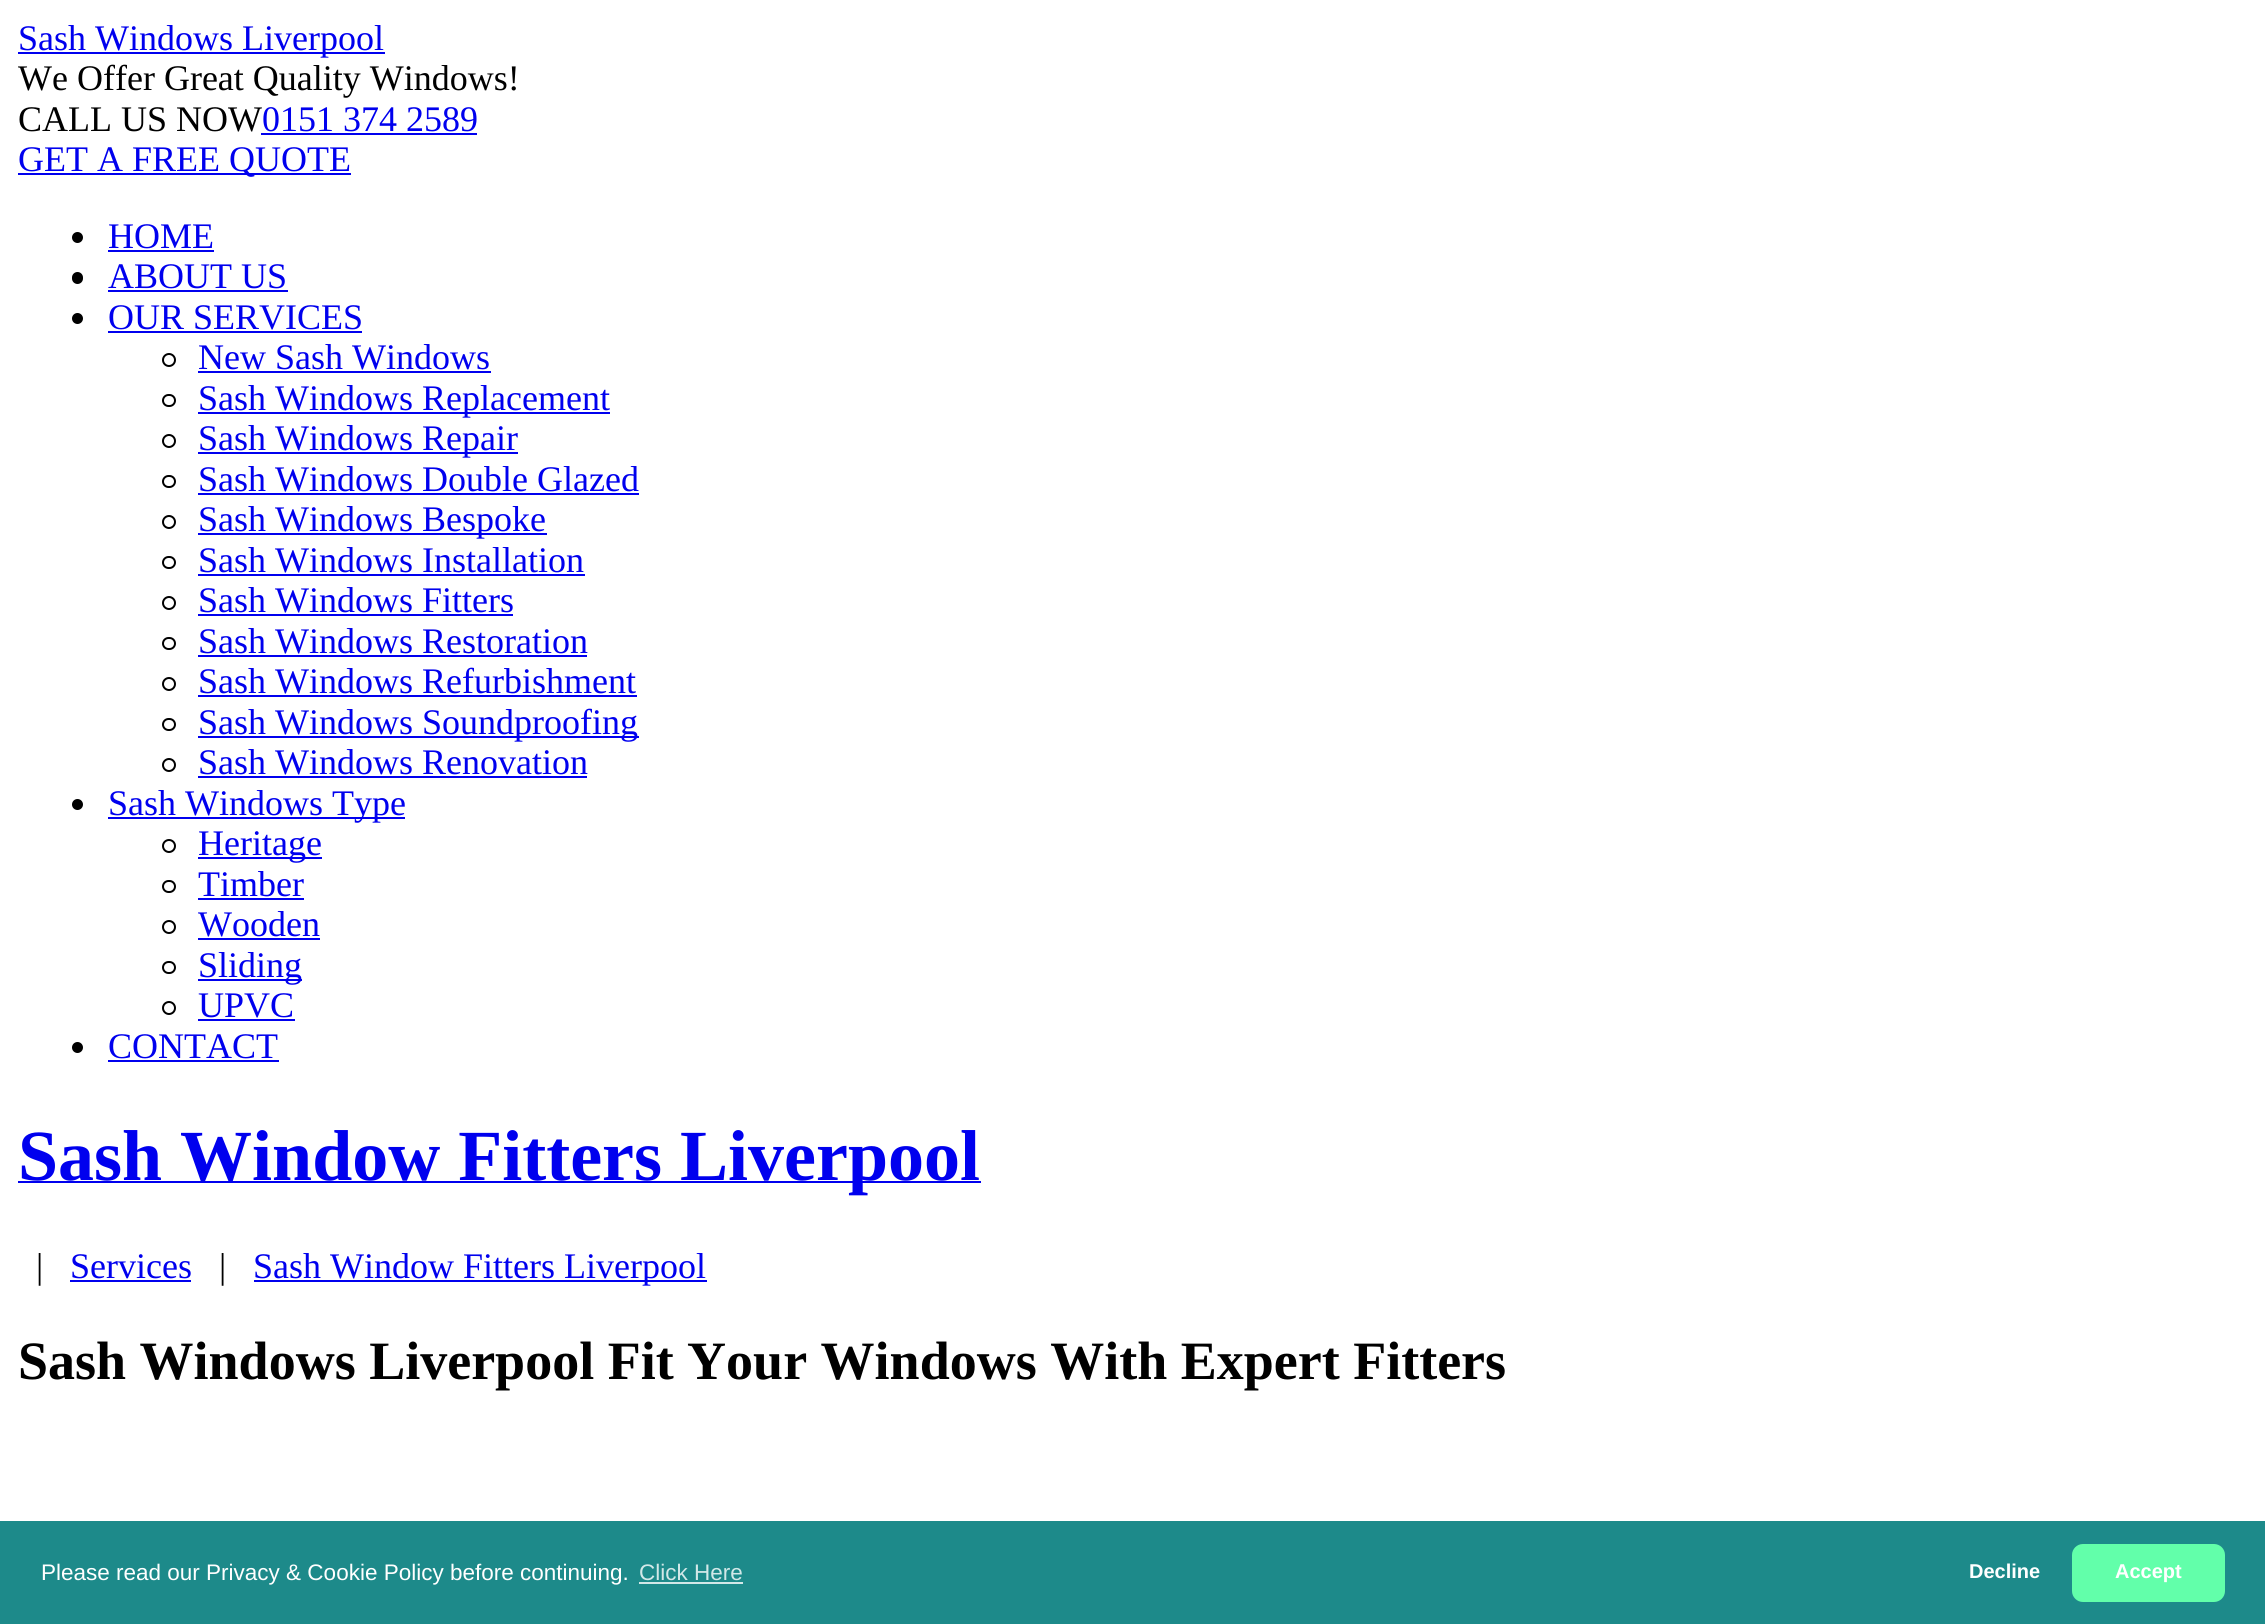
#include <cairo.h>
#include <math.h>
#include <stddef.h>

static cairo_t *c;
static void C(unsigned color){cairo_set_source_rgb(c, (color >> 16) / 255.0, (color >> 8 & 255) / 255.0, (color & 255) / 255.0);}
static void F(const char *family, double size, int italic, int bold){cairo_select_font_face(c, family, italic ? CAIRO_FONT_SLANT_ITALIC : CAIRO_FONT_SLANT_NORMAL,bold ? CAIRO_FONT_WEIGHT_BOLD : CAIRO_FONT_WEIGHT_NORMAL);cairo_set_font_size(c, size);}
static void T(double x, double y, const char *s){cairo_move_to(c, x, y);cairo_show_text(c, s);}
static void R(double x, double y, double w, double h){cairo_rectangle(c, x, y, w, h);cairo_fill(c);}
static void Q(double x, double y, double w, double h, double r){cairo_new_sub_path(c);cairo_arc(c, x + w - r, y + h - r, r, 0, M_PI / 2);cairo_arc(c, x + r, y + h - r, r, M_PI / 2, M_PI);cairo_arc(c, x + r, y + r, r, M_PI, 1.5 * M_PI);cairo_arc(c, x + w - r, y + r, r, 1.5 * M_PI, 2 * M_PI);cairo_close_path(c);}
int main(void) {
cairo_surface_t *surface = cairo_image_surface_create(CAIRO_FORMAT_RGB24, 2265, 1624);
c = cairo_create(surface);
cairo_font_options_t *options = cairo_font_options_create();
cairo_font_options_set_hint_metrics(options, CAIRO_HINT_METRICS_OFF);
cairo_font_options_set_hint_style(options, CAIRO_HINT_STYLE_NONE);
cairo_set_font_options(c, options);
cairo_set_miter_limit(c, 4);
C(0xffffff);
cairo_paint(c);
C(0x0000ee);
R(18,52,367,2);
F("Liberation Serif",36,0,0);
T(18,50,"Sash Windows Liverpool");
C(0x000000);
T(18,90,"We Offer Great Quality Windows!");
T(18,131,"CALL US NOW");
C(0x0000ee);
T(262,131,"0151 374 2589");
R(261,133,216,2);
R(18,173,333,2);
T(18,171,"GET A FREE QUOTE");
C(0x000000);
cairo_new_path(c);
cairo_arc(c,77.5,237.5,5.5,0,2 * M_PI);
cairo_fill(c);
C(0x0000ee);
T(108,248,"HOME");
R(108,250,106,2);
C(0x000000);
Q(72,272,11,12,5.5);
cairo_fill(c);
C(0x0000ee);
T(108,288,"ABOUT US");
R(108,290,180,2);
C(0x000000);
cairo_new_path(c);
cairo_arc(c,77.5,318.5,5.5,0,2 * M_PI);
cairo_fill(c);
C(0x0000ee);
T(108,329,"OUR SERVICES");
R(108,331,254,2);
cairo_new_path(c);
cairo_arc(c,169,360,6,0,2 * M_PI);
C(0x000000);
cairo_stroke(c);
C(0x0000ee);
T(198,369,"New Sash Windows");
R(198,371,293,2);
Q(163,395,12,11,5.5);
C(0x000000);
cairo_stroke(c);
C(0x0000ee);
R(198,412,412,2);
T(198,410,"Sash Windows Replacement");
cairo_new_path(c);
cairo_arc(c,169,441,6,0,2 * M_PI);
C(0x000000);
cairo_stroke(c);
C(0x0000ee);
R(198,452,320,2);
T(198,450,"Sash Windows Repair");
Q(163,476,12,11,5.5);
C(0x000000);
cairo_stroke(c);
C(0x0000ee);
T(198,491,"Sash Windows Double Glazed");
R(198,493,441,2);
cairo_new_path(c);
cairo_arc(c,169,522,6,0,2 * M_PI);
C(0x000000);
cairo_stroke(c);
C(0x0000ee);
R(198,533,349,2);
T(198,531,"Sash Windows Bespoke");
Q(163,557,12,11,5.5);
C(0x000000);
cairo_stroke(c);
C(0x0000ee);
T(198,572,"Sash Windows Installation");
R(198,574,387,2);
cairo_new_path(c);
cairo_arc(c,169,603,6,0,2 * M_PI);
C(0x000000);
cairo_stroke(c);
C(0x0000ee);
T(198,612,"Sash Windows Fitters");
R(198,614,315,2);
Q(163,638,12,11,5.5);
C(0x000000);
cairo_stroke(c);
C(0x0000ee);
T(198,653,"Sash Windows Restoration");
R(198,655,389,2);
cairo_new_path(c);
cairo_arc(c,169,684,6,0,2 * M_PI);
C(0x000000);
cairo_stroke(c);
C(0x0000ee);
T(198,693,"Sash Windows Refurbishment");
R(198,695,439,2);
Q(163,719,12,11,5.5);
C(0x000000);
cairo_stroke(c);
C(0x0000ee);
R(198,736,441,2);
T(198,734,"Sash Windows Soundproofing");
cairo_new_path(c);
cairo_arc(c,169,765,6,0,2 * M_PI);
C(0x000000);
cairo_stroke(c);
C(0x0000ee);
T(198,774,"Sash Windows Renovation");
R(198,776,389,2);
C(0x000000);
cairo_new_path(c);
cairo_arc(c,77.5,804.5,5.5,0,2 * M_PI);
cairo_fill(c);
C(0x0000ee);
R(108,817,297,2);
T(108,815,"Sash Windows Type");
cairo_new_path(c);
cairo_arc(c,169,846,6,0,2 * M_PI);
C(0x000000);
cairo_stroke(c);
C(0x0000ee);
R(198,857,124,2);
T(198,855,"Heritage");
Q(163,881,12,11,5.5);
C(0x000000);
cairo_stroke(c);
C(0x0000ee);
T(198,896,"Timber");
R(198,898,106,2);
cairo_new_path(c);
cairo_arc(c,169,927,6,0,2 * M_PI);
C(0x000000);
cairo_stroke(c);
C(0x0000ee);
T(198,936,"Wooden");
R(198,938,122,2);
Q(163,962,12,11,5.5);
C(0x000000);
cairo_stroke(c);
C(0x0000ee);
R(198,979,104,2);
T(198,977,"Sliding");
cairo_new_path(c);
cairo_arc(c,169,1008,6,0,2 * M_PI);
C(0x000000);
cairo_stroke(c);
C(0x0000ee);
T(198,1017,"UPVC");
R(198,1019,97,2);
C(0x000000);
cairo_new_path(c);
cairo_arc(c,77.5,1047.5,5.5,0,2 * M_PI);
cairo_fill(c);
C(0x0000ee);
T(108,1058,"CONTACT");
R(108,1060,171,2);
R(18,1181,963,2);
F("Liberation Serif",72,0,1);
T(18,1180,"Sash Window Fitters Liverpool");
F("Liberation Serif",36,0,0);
C(0x000000);
T(36,1278,"|");
C(0x0000ee);
T(70,1278,"Services");
R(70,1280,121,2);
C(0x000000);
T(219,1278,"|");
C(0x0000ee);
R(254,1280,453,2);
T(253,1278,"Sash Window Fitters Liverpool");
F("Liberation Serif",54,0,1);
C(0x000000);
T(18,1379,"Sash Windows Liverpool Fit Your Windows With Expert Fitters");
C(0x1d8a8a);
R(0,1521,2265,103);
F("Liberation Sans",22.5,0,0);
C(0xffffff);
T(41,1580,"Please read our Privacy & Cookie Policy before continuing.");
C(0xd2e8e8);
T(639,1580,"Click Here");
R(639,1582,104,2);
F("Liberation Sans",20,0,1);
C(0xffffff);
T(1969,1578,"Decline");
C(0x62ffaa);
Q(2072,1544,153,58,11);
cairo_fill(c);
C(0xffffff);
T(2115,1578,"Accept");
cairo_surface_write_to_png(surface, "o.png");
cairo_font_options_destroy(options);
cairo_destroy(c);
cairo_surface_destroy(surface);
return 0;
}
